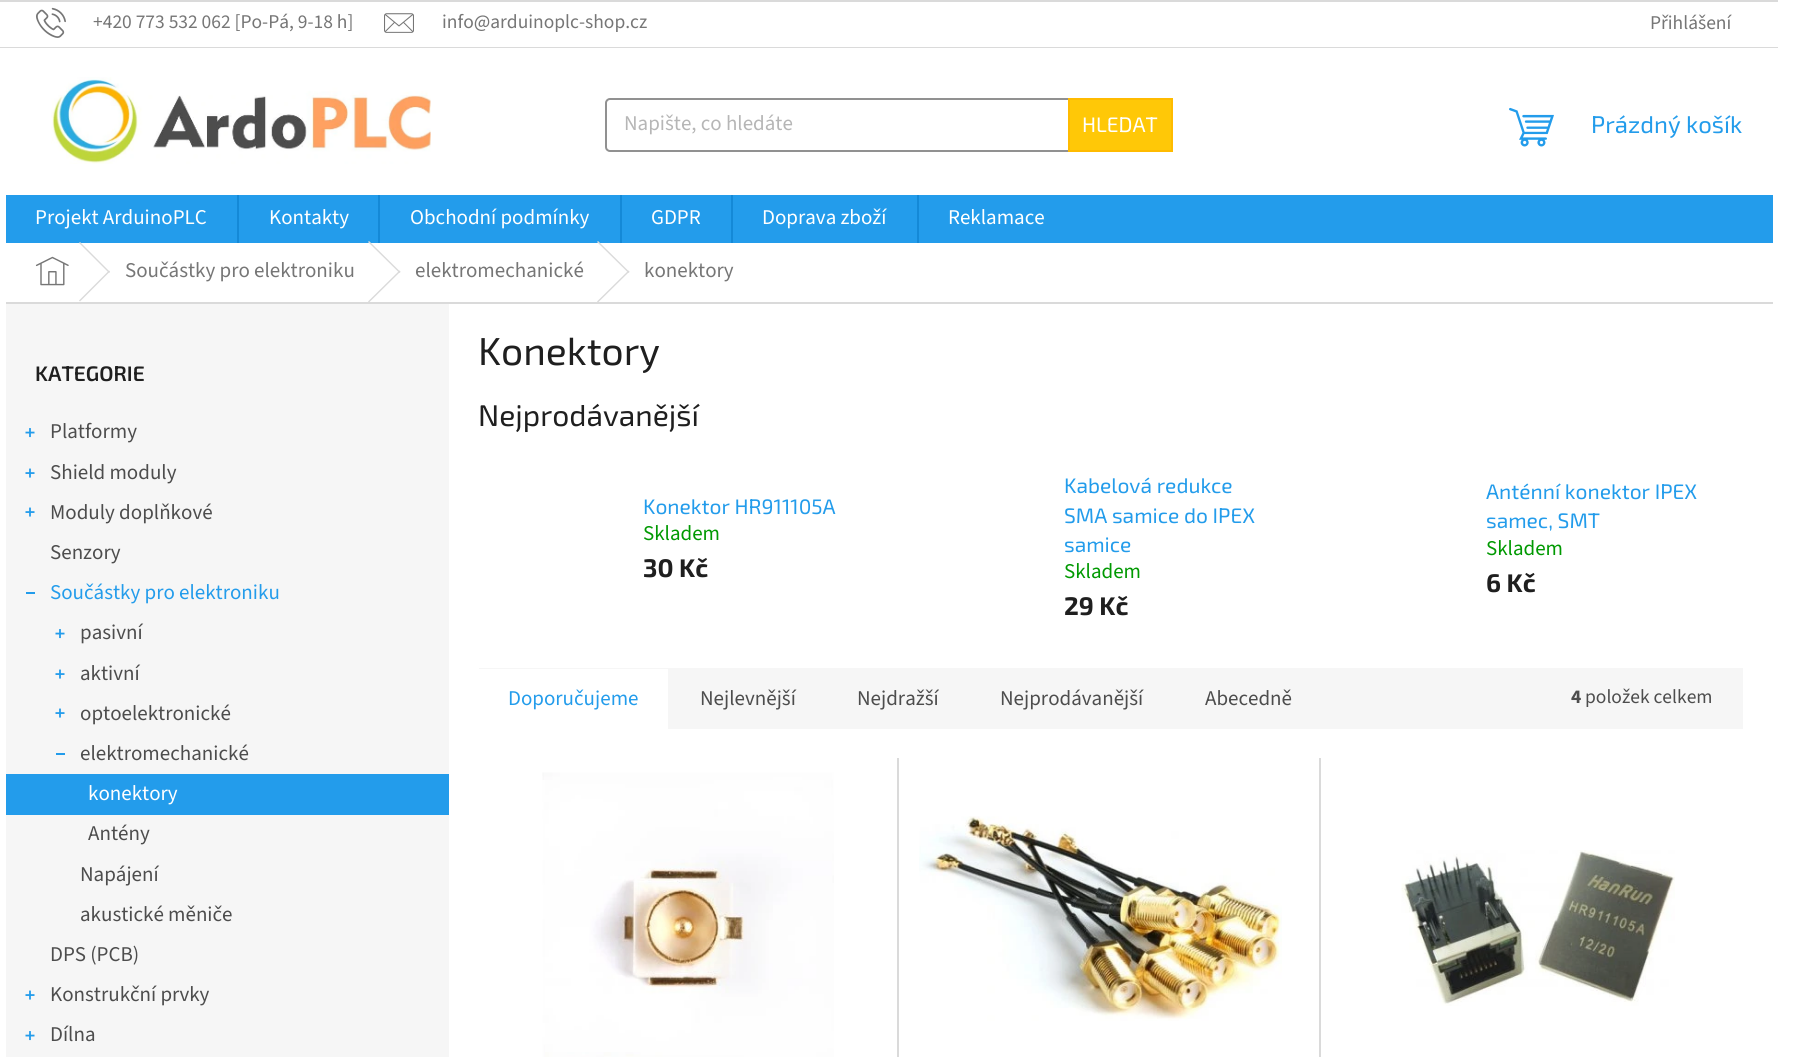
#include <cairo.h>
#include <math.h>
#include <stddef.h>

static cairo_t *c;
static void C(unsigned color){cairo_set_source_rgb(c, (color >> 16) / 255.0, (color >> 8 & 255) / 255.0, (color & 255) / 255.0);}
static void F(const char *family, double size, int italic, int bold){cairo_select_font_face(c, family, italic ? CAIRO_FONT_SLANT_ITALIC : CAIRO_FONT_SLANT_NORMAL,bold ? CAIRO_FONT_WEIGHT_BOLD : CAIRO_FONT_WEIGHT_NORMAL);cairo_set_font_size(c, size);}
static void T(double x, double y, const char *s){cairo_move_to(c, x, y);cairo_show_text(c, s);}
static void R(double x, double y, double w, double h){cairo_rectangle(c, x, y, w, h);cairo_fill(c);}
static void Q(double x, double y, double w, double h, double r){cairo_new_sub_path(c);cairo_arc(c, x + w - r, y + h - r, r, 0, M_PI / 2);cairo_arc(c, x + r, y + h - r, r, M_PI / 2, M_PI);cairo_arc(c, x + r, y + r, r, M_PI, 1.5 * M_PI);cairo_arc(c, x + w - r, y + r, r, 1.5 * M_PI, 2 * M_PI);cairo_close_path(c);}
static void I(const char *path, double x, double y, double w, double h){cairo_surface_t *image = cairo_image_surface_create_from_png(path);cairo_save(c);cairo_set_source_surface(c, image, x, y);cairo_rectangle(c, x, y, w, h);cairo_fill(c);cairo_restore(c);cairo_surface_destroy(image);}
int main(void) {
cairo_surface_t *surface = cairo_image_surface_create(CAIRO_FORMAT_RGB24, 1799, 1057);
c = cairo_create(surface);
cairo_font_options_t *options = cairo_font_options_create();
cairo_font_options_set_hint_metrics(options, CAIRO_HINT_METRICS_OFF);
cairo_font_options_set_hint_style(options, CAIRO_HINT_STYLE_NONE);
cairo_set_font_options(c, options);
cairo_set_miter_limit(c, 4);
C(0xffffff);
cairo_paint(c);
C(0xdadada);
R(0,0,1778,2);
R(0,47,1778,1);
I("1.png",36,7,30,31);
F("Source Sans 3",19.5,0,0);
C(0x767676);
T(93,28,"+420 773 532 062 [Po-Pá, 9-18 h]");
I("2.png",384,13,30,20);
T(442,28,"info@arduinoplc-shop.cz");
T(1650,29,"Přihlášení");
I("3.png",51,77,380,87);
Q(606,99,566,52,4);
C(0x919191);
cairo_stroke(c);
F("Source Sans 3",21,0,0);
C(0xb6b6b6);
T(624,130,"Napište, co hledáte");
C(0xffc807);
cairo_rectangle(c,1069,99,103,52);
cairo_fill_preserve(c);
C(0xffbb00);
cairo_stroke(c);
F("Exo 2",21,0,0);
C(0xffffff);
T(1082,132,"HLEDAT");
I("4.png",1509,107,45,40);
F("Exo 2",24,0,0);
C(0x239ceb);
T(1591,133,"Prázdný košík");
R(6,195,1767,48);
F("Source Sans 3",21,0,0);
C(0xffffff);
T(35,224,"Projekt ArduinoPLC");
C(0x1489d7);
R(237,195,2,48);
C(0xffffff);
T(269,224,"Kontakty");
C(0x1489d7);
R(378,195,2,48);
C(0xffffff);
T(410,224,"Obchodní podmínky");
C(0x1489d7);
R(620,195,2,48);
C(0xffffff);
T(651,224,"GDPR");
C(0x1489d7);
R(731,195,2,48);
C(0xffffff);
T(762,224,"Doprava zboží");
C(0x1489d7);
R(917,195,2,48);
C(0xffffff);
T(948,224,"Reklamace");
C(0xdadada);
R(6,302,1767,2);
I("5.png",35,256,34,30);
cairo_new_path(c);
cairo_move_to(c,79,243);
cairo_line_to(c,80,242);
cairo_line_to(c,110,272);
cairo_line_to(c,109,273);
cairo_close_path(c);
cairo_fill(c);
cairo_new_path(c);
cairo_move_to(c,109,270.5);
cairo_line_to(c,110,271.5);
cairo_line_to(c,80,301.5);
cairo_line_to(c,79,300.5);
cairo_close_path(c);
cairo_fill(c);
C(0x767676);
T(125,277,"Součástky pro elektroniku");
C(0xdadada);
cairo_new_path(c);
cairo_move_to(c,368,242);
cairo_line_to(c,369,241);
cairo_line_to(c,400.5,272);
cairo_line_to(c,399.5,273);
cairo_close_path(c);
cairo_fill(c);
cairo_new_path(c);
cairo_move_to(c,399.5,270.5);
cairo_line_to(c,400.5,271.5);
cairo_line_to(c,369,302.5);
cairo_line_to(c,368,301.5);
cairo_close_path(c);
cairo_fill(c);
C(0x767676);
T(415,277,"elektromechanické");
C(0xdadada);
cairo_new_path(c);
cairo_move_to(c,597,242);
cairo_line_to(c,598,241);
cairo_line_to(c,629.5,272);
cairo_line_to(c,628.5,273);
cairo_close_path(c);
cairo_fill(c);
cairo_new_path(c);
cairo_move_to(c,628.5,270.5);
cairo_line_to(c,629.5,271.5);
cairo_line_to(c,598,302.5);
cairo_line_to(c,597,301.5);
cairo_close_path(c);
cairo_fill(c);
C(0x767676);
T(644,277,"konektory");
C(0xf6f6f6);
R(6,304,443,753);
F("Exo 2 SemiBold",21,0,0);
C(0x1f1f1f);
T(35,381,"KATEGORIE");
I("6.png",25,428,10,10);
F("Source Sans 3",21,0,0);
C(0x4d4d4d);
T(50,438,"Platformy");
I("7.png",25,468,10,10);
T(50,479,"Shield moduly");
I("7.png",25,507,10,10);
T(50,519,"Moduly doplňkové");
T(50,559,"Senzory");
C(0x239ceb);
R(26,592,9,2);
T(50,599,"Součástky pro elektroniku");
I("6.png",55,629,10,10);
C(0x4d4d4d);
T(80,639,"pasivní");
I("7.png",55,669,10,10);
T(80,680,"aktivní");
I("7.png",55,708,10,10);
T(80,720,"optoelektronické");
C(0x239ceb);
R(56,753,9,2);
C(0x4d4d4d);
T(80,760,"elektromechanické");
C(0x239ceb);
R(6,774,443,41);
C(0xffffff);
T(88,800,"konektory");
C(0x4d4d4d);
T(88,840,"Antény");
T(80,881,"Napájení");
T(80,921,"akustické měniče");
T(50,961,"DPS (PCB)");
I("7.png",25,990,10,10);
T(50,1001,"Konstrukční prvky");
I("6.png",25,1031,10,10);
T(50,1041,"Dílna");
F("Exo 2",39,0,0);
C(0x1f1f1f);
T(478,365,"Konektory");
F("Exo 2",30,0,0);
T(478,426,"Nejprodávanější");
F("Exo 2",21,0,0);
C(0x239ceb);
T(643,514,"Konektor HR911105A");
F("Source Sans 3",21,0,0);
C(0x009901);
T(643,540,"Skladem");
F("Exo 2",25.5,0,1);
C(0x1f1f1f);
T(643,577,"30 Kč");
F("Exo 2",21,0,0);
C(0x239ceb);
T(1064,493,"Kabelová redukce");
T(1064,523,"SMA samice do IPEX");
T(1064,552,"samice");
F("Source Sans 3",21,0,0);
C(0x009901);
T(1064,578,"Skladem");
F("Exo 2",25.5,0,1);
C(0x1f1f1f);
T(1064,615,"29 Kč");
F("Exo 2",21,0,0);
C(0x239ceb);
T(1486,499,"Anténní konektor IPEX");
T(1486,528,"samec, SMT");
F("Source Sans 3",21,0,0);
C(0x009901);
T(1486,555,"Skladem");
F("Exo 2",25.5,0,1);
C(0x1f1f1f);
T(1486,592,"6 Kč");
C(0xf6f6f6);
R(479,668,1264,61);
C(0xffffff);
R(479,669,189,60);
F("Source Sans 3",21,0,0);
C(0x239ceb);
T(508,705,"Doporučujeme");
C(0x4d4d4d);
T(700,705,"Nejlevnější");
T(857,705,"Nejdražší");
T(1000,705,"Nejprodávanější");
T(1205,705,"Abecedně");
F("Source Sans 3",19.5,0,1);
T(1571,703,"4");
F("Source Sans 3",19.5,0,0);
T(1585,703,"položek celkem");
C(0xdadada);
R(897,758,2,299);
I("8.png",542,772,292,285);
R(1319,758,2,299);
I("9.png",919,816,363,205);
I("10.png",1401,850,274,156);
cairo_surface_write_to_png(surface, "o.png");
cairo_font_options_destroy(options);
cairo_destroy(c);
cairo_surface_destroy(surface);
return 0;
}
